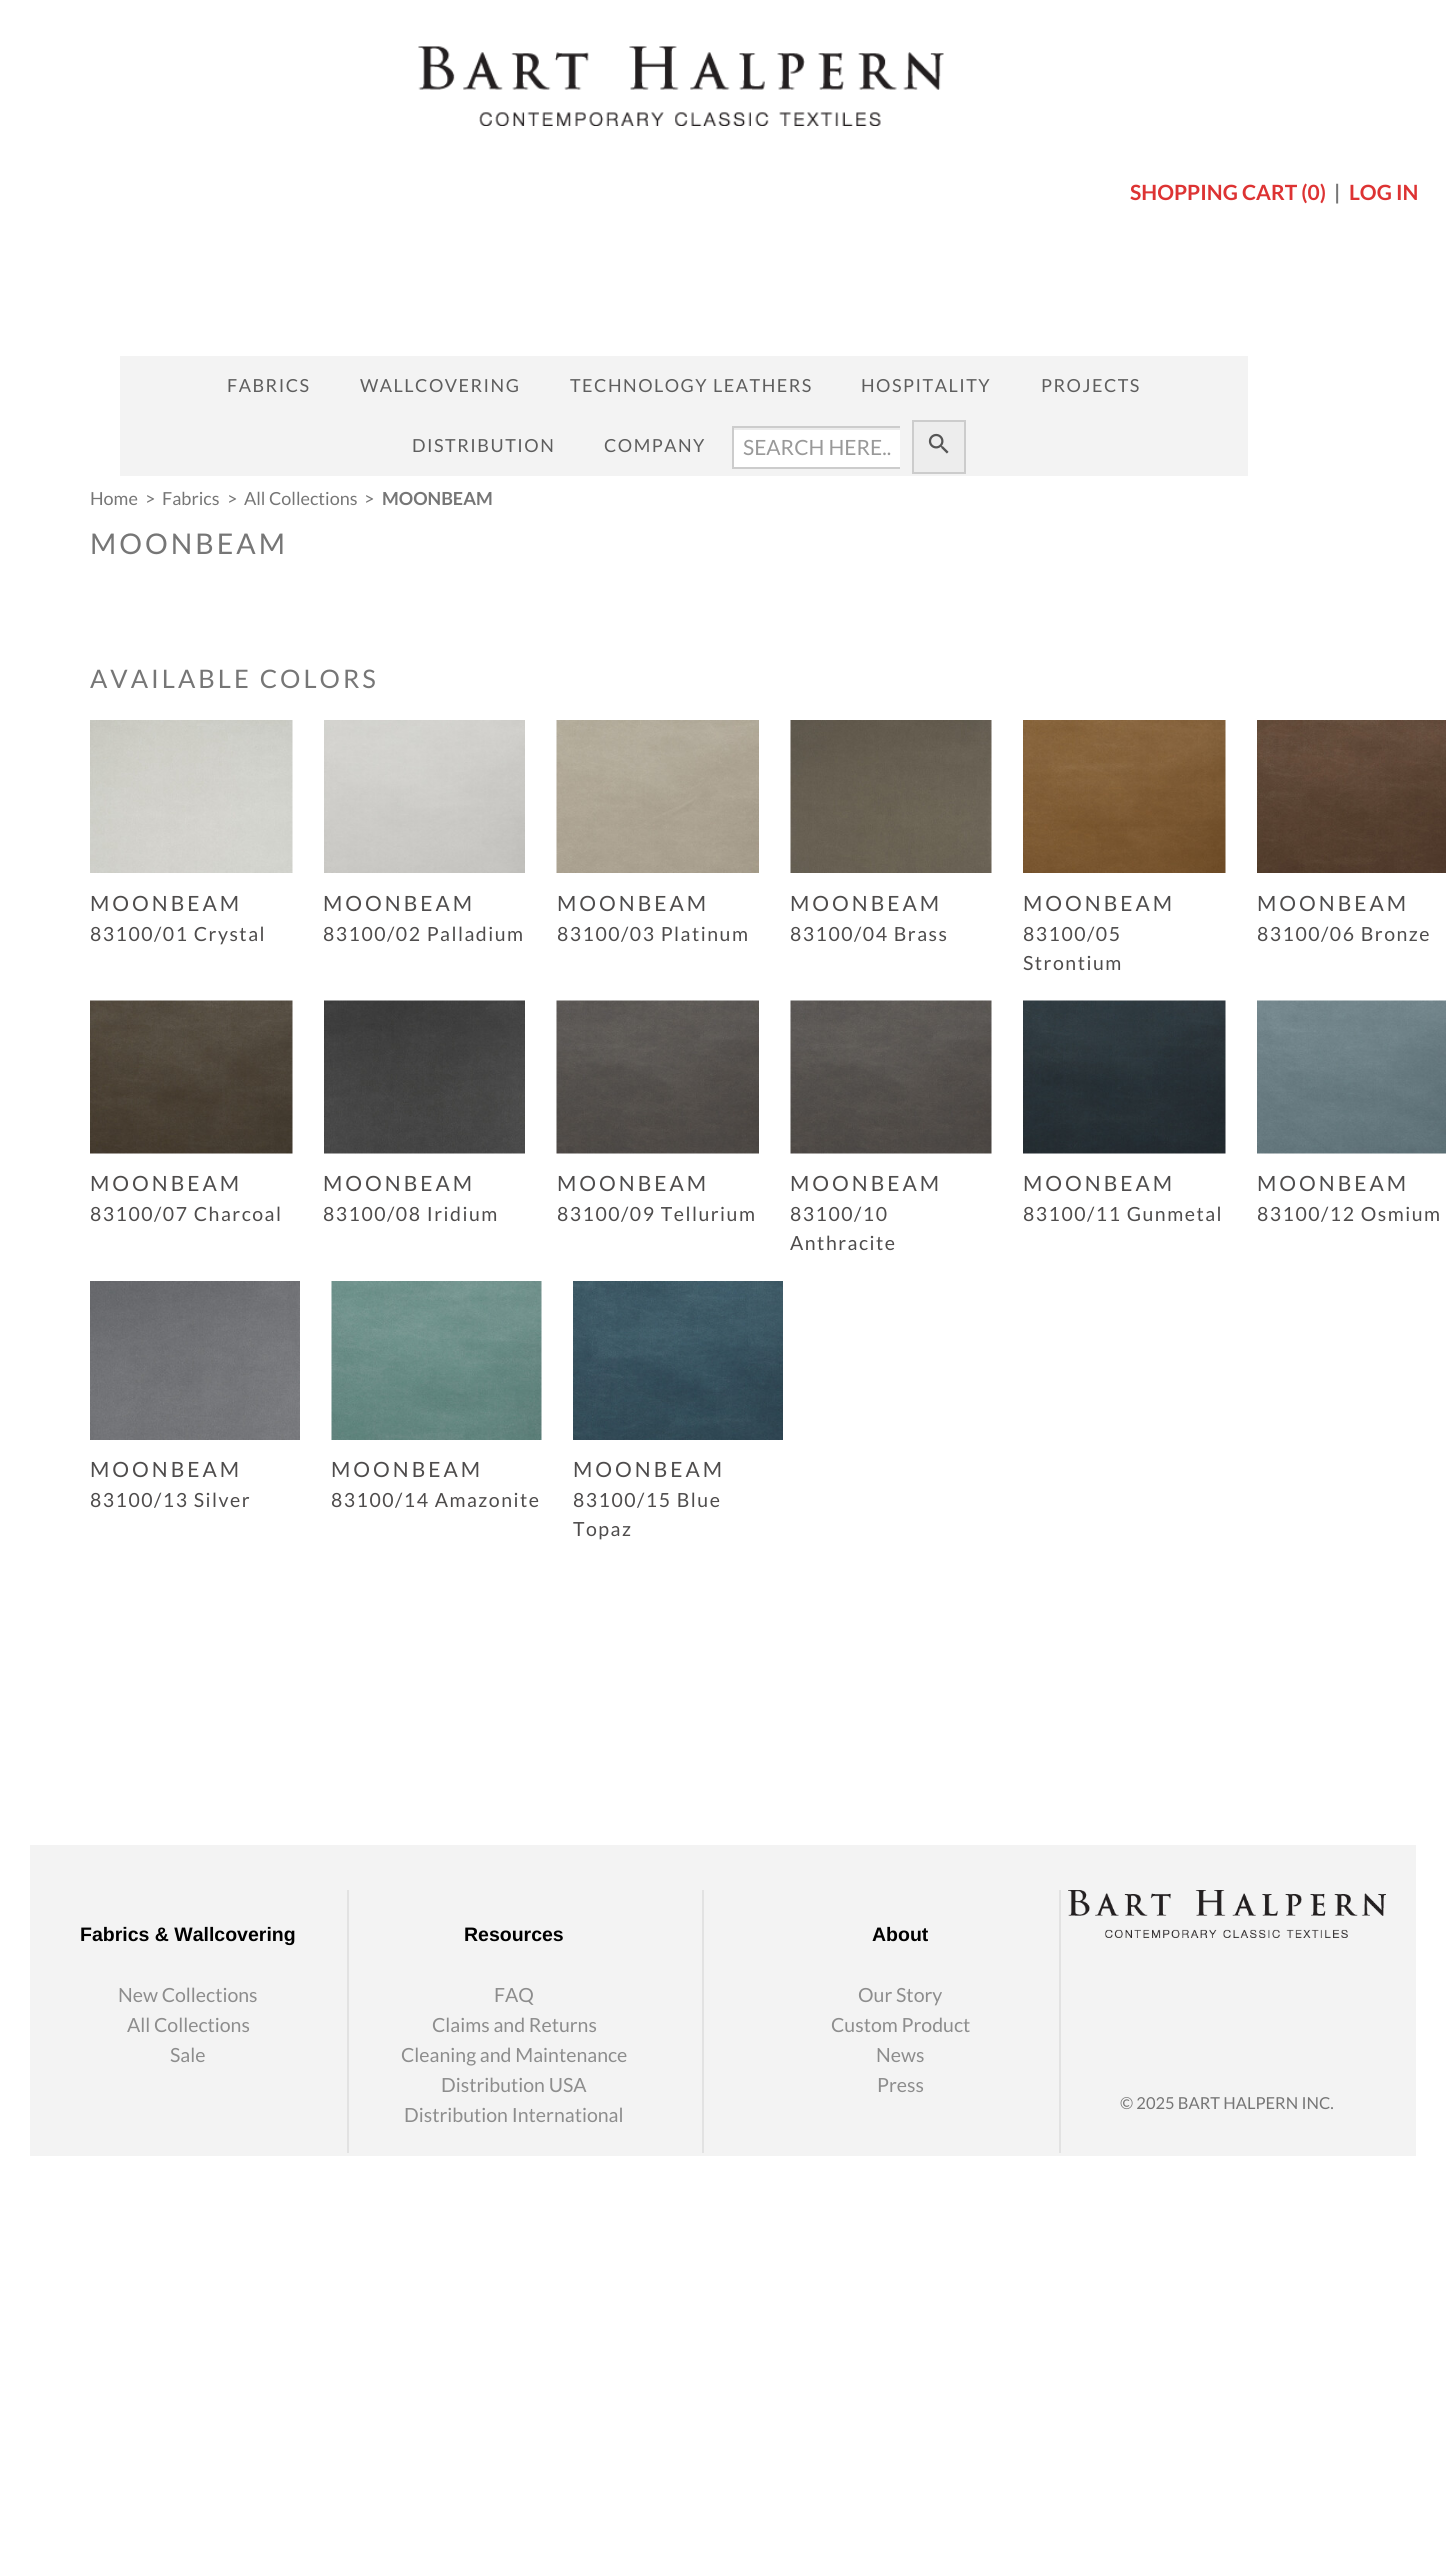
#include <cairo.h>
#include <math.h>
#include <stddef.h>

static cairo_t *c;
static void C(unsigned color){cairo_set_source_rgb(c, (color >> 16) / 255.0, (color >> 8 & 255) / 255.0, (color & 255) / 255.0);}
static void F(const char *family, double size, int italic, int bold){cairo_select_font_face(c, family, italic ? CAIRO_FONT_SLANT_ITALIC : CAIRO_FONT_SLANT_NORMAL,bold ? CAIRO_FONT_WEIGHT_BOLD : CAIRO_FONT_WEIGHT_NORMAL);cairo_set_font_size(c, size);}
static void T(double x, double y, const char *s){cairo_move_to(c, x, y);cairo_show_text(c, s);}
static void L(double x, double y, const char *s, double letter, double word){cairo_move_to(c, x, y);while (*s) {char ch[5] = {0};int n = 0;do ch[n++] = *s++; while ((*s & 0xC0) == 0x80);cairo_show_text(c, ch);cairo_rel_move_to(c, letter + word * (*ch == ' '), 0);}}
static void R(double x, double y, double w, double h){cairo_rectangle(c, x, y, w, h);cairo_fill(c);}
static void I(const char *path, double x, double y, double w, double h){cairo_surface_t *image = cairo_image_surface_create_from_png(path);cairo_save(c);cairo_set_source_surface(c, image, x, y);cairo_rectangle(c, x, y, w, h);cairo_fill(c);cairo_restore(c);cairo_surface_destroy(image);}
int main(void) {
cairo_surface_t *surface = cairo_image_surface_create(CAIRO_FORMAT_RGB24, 1446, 2561);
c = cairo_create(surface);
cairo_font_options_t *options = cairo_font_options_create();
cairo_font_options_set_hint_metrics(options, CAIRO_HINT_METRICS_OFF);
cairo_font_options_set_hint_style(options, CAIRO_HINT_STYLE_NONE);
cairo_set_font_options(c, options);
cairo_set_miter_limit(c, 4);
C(0xffffff);
cairo_paint(c);
I("1.png",418,46,526,80);
F("Lato",21,0,1);
C(0xdd3333);
T(1130,200,"SHOPPING CART (0)");
C(0x767676);
T(1334,200,"|");
C(0xdd3333);
T(1349,200,"LOG IN");
C(0xf3f3f3);
R(120,356,1128,120);
F("Lato",18,0,0);
C(0x5e5e5e);
L(227,392,"FABRICS",1.5,0);
L(360,392,"WALLCOVERING",1.5,0);
L(570,392,"TECHNOLOGY LEATHERS",1.5,0);
L(861,392,"HOSPITALITY",1.5,0);
L(1041,392,"PROJECTS",1.5,0);
L(412,452,"DISTRIBUTION",1.5,0);
L(604,452,"COMPANY",1.5,0);
C(0xffffff);
R(734,430,166,37);
C(0xececec);
R(734,428,166,2);
C(0xcccccc);
R(732,426,168,2);
R(732,467,168,2);
R(732,426,2,42);
F("Lato",21,0,0);
C(0x999999);
T(743,455,"SEARCH HERE..");
C(0xededed);
cairo_rectangle(c,913,421,52,52);
cairo_fill_preserve(c);
C(0xcccccc);
cairo_stroke(c);
I("2.png",928,433,21,21);
F("Lato",18,0,0);
C(0x767676);
T(90,505,"Home");
T(145,505,">");
T(162,505,"Fabrics");
T(227,505,">");
T(244,505,"All Collections");
T(364,505,">");
F("Lato",18,0,1);
T(382,505,"MOONBEAM");
F("Lato",28.5,0,0);
L(90,554,"MOONBEAM",3,0);
F("Lato",25.5,0,0);
L(90,688,"AVAILABLE COLORS",3,0);
I("3.png",90,720,203,153);
F("Lato",21,0,0);
C(0x4e4c4c);
L(90,911,"MOONBEAM",3,0);
F("Lato",19.5,0,0);
L(90,941,"83100/01 Crystal",1.5,0);
I("4.png",324,720,201,153);
F("Lato",21,0,0);
L(323,911,"MOONBEAM",3,0);
F("Lato",19.5,0,0);
L(323,941,"83100/02 Palladium",1.5,0);
I("5.png",556,720,203,153);
F("Lato",21,0,0);
L(557,911,"MOONBEAM",3,0);
F("Lato",19.5,0,0);
L(557,941,"83100/03 Platinum",1.5,0);
I("6.png",790,720,202,153);
F("Lato",21,0,0);
L(790,911,"MOONBEAM",3,0);
F("Lato",19.5,0,0);
L(790,941,"83100/04 Brass",1.5,0);
I("7.png",1023,720,203,153);
F("Lato",21,0,0);
L(1023,911,"MOONBEAM",3,0);
F("Lato",19.5,0,0);
L(1023,941,"83100/05",1.5,0);
L(1023,970,"Strontium",1.5,0);
I("8.png",1257,720,189,153);
F("Lato",21,0,0);
L(1257,911,"MOONBEAM",3,0);
F("Lato",19.5,0,0);
L(1257,941,"83100/06 Bronze",1.5,0);
I("9.png",90,1000,203,154);
F("Lato",21,0,0);
L(90,1191,"MOONBEAM",3,0);
F("Lato",19.5,0,0);
L(90,1221,"83100/07 Charcoal",1.5,0);
I("10.png",324,1000,201,154);
F("Lato",21,0,0);
L(323,1191,"MOONBEAM",3,0);
F("Lato",19.5,0,0);
L(323,1221,"83100/08 Iridium",1.5,0);
I("11.png",556,1000,203,154);
F("Lato",21,0,0);
L(557,1191,"MOONBEAM",3,0);
F("Lato",19.5,0,0);
L(557,1221,"83100/09 Tellurium",1.5,0);
I("12.png",790,1000,202,154);
F("Lato",21,0,0);
L(790,1191,"MOONBEAM",3,0);
F("Lato",19.5,0,0);
L(790,1221,"83100/10",1.5,0);
L(790,1250,"Anthracite",1.5,0);
I("13.png",1023,1000,203,154);
F("Lato",21,0,0);
L(1023,1191,"MOONBEAM",3,0);
F("Lato",19.5,0,0);
L(1023,1221,"83100/11 Gunmetal",1.5,0);
I("14.png",1257,1000,189,154);
F("Lato",21,0,0);
L(1257,1191,"MOONBEAM",3,0);
F("Lato",19.5,0,0);
L(1257,1221,"83100/12 Osmium",1.5,0);
I("15.png",90,1281,210,159);
F("Lato",21,0,0);
L(90,1477,"MOONBEAM",3,0);
F("Lato",19.5,0,0);
L(90,1507,"83100/13 Silver",1.5,0);
I("16.png",331,1281,211,159);
F("Lato",21,0,0);
L(331,1477,"MOONBEAM",3,0);
F("Lato",19.5,0,0);
L(331,1507,"83100/14 Amazonite",1.5,0);
I("17.png",573,1281,210,159);
F("Lato",21,0,0);
L(573,1477,"MOONBEAM",3,0);
F("Lato",19.5,0,0);
L(573,1507,"83100/15 Blue",1.5,0);
L(573,1536,"Topaz",1.5,0);
C(0xf3f3f3);
R(30,1845,1386,311);
C(0xe2e2e2);
R(347,1890,2,263);
F("Liberation Sans",19.5,0,1);
C(0x000000);
T(80,1941,"Fabrics & Wallcovering");
F("Lato",19.5,0,0);
C(0x8d8d8d);
T(118,2002,"New Collections");
T(127,2032,"All Collections");
T(170,2062,"Sale");
C(0xe2e2e2);
R(702,1890,2,263);
F("Liberation Sans",19.5,0,1);
C(0x000000);
T(464,1941,"Resources");
F("Lato",19.5,0,0);
C(0x8d8d8d);
T(494,2002,"FAQ");
T(432,2032,"Claims and Returns");
T(401,2062,"Cleaning and Maintenance");
T(441,2092,"Distribution USA");
T(404,2122,"Distribution International");
C(0xe2e2e2);
R(1059,1890,2,263);
F("Liberation Sans",19.5,0,1);
C(0x000000);
T(872,1941,"About");
F("Lato",19.5,0,0);
C(0x8d8d8d);
T(858,2002,"Our Story");
T(831,2032,"Custom Product");
T(876,2062,"News");
T(877,2092,"Press");
I("18.png",1068,1890,318,48);
F("Lato",16.5,0,0);
C(0x767676);
T(1120,2109,"© 2025 BART HALPERN INC.");
cairo_surface_write_to_png(surface, "o.png");
cairo_font_options_destroy(options);
cairo_destroy(c);
cairo_surface_destroy(surface);
return 0;
}
